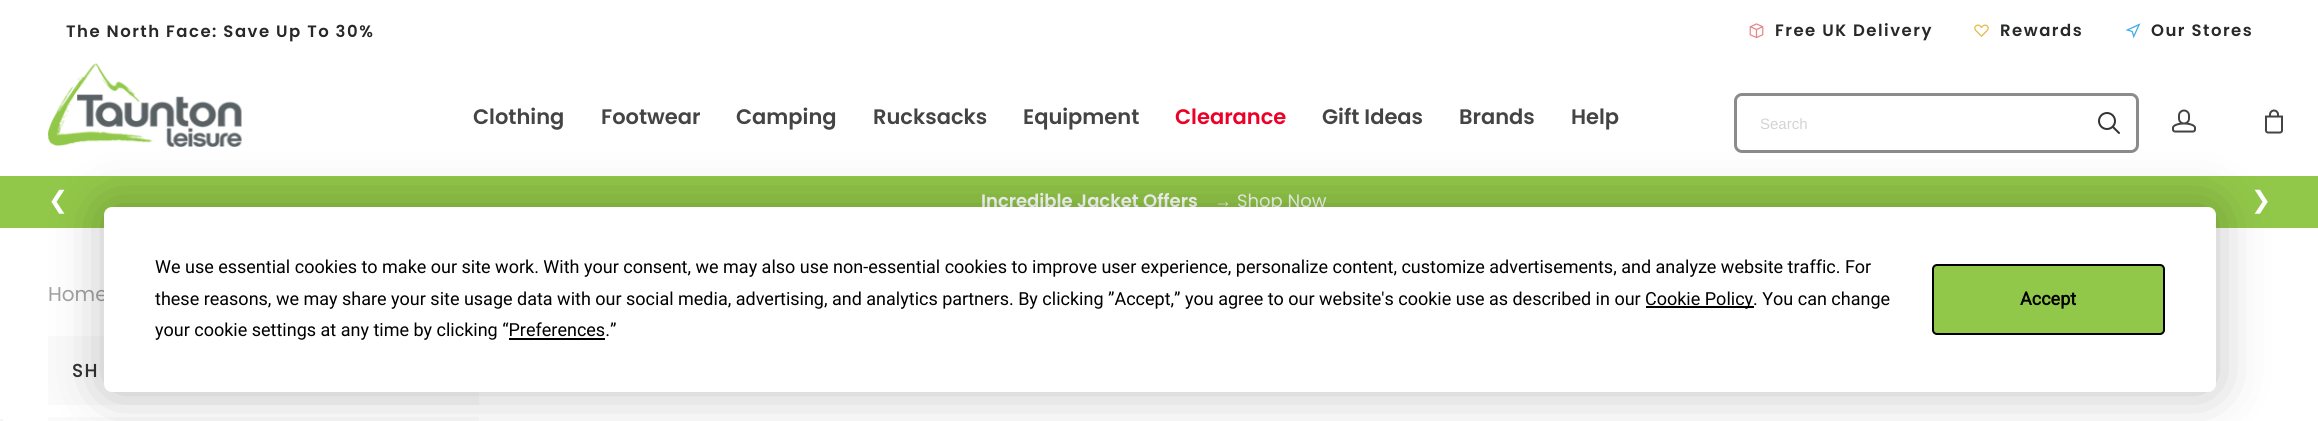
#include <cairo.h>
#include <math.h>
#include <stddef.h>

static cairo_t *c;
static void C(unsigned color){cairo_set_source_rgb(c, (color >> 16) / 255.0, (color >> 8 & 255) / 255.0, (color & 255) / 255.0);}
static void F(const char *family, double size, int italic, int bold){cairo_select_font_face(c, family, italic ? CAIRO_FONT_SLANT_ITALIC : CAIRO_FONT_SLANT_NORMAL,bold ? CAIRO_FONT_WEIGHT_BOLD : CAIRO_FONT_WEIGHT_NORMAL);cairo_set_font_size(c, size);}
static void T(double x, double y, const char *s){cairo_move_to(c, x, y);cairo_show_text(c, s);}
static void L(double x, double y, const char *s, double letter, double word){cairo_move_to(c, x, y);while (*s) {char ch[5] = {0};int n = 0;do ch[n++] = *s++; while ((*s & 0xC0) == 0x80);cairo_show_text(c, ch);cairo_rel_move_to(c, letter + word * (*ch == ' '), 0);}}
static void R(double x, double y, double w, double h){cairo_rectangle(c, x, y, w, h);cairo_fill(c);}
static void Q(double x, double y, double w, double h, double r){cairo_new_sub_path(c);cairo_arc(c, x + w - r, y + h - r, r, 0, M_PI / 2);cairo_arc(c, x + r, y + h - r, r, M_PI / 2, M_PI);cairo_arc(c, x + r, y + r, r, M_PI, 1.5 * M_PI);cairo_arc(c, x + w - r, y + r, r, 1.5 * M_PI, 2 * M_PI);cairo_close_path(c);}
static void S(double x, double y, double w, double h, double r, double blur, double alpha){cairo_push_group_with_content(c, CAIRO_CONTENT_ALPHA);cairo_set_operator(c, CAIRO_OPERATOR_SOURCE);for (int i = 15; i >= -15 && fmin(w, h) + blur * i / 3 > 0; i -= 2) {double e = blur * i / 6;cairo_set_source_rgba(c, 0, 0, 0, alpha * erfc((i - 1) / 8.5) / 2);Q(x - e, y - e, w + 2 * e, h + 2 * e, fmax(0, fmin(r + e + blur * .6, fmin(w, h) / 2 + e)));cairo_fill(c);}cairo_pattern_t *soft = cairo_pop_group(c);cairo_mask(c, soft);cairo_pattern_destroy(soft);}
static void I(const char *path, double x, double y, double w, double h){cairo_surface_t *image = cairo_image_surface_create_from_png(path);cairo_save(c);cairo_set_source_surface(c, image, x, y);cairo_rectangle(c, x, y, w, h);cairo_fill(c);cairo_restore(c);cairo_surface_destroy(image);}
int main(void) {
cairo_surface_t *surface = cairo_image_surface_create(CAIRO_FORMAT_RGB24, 2318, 421);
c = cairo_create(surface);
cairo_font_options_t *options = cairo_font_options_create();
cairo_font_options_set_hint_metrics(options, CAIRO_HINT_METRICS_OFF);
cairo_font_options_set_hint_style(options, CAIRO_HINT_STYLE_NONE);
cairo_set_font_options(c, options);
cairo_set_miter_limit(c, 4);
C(0xffffff);
cairo_paint(c);
F("Poppins SemiBold",16.5,0,0);
C(0x272929);
L(66,37,"The North Face: Save Up To 30%",1.5,0);
I("1.png",1749,23,15,16);
L(1775,36,"Free UK Delivery",1.5,0);
I("2.png",1974,24,15,13);
L(2000,36,"Rewards",1.5,0);
I("3.png",2125,23,16,16);
L(2151,36,"Our Stores",1.5,0);
I("4.png",48,63,194,84);
F("Poppins SemiBold",21,0,0);
C(0x444444);
T(473,124,"Clothing");
T(601,124,"Footwear");
T(736,124,"Camping");
T(873,124,"Rucksacks");
T(1023,124,"Equipment");
C(0xec0028);
T(1175,124,"Clearance");
C(0x444444);
T(1322,124,"Gift Ideas");
T(1459,124,"Brands");
T(1571,124,"Help");
Q(1735.5,94.5,402,57,6.5);
C(0x8b8b8b);
cairo_set_line_width(c,3);
cairo_stroke(c);
F("Liberation Sans",15,0,0);
C(0xd3d3d3);
T(1760,129,"Search");
I("5.png",2098,112,22,22);
I("6.png",2172,109,24,24);
I("7.png",2265,109,18,25);
C(0x92c849);
R(0,176,2318,52);
F("DejaVu Sans",24,0,0);
C(0xffffff);
T(48,208,"❮");
F("Poppins SemiBold",18,0,0);
T(981,207,"Incredible Jacket Offers");
F("Liberation Serif",18,0,0);
C(0xf4faed);
T(1214,207,"→");
F("Poppins",18,0,0);
T(1237,207,"Shop Now");
F("DejaVu Sans",24,0,0);
C(0xffffff);
T(2251,208,"❯");
F("Poppins",20,0,0);
C(0xa2a2a2);
T(48,301,"Home");
C(0xfafafa);
R(48,336,431,69);
F("Poppins",18,0,1);
C(0x333333);
L(72,377,"SH",2,0);
C(0xfafafa);
R(48,417,431,4);
C(0x000000);
S(104,207,2112,185,8,26,.25);
C(0xffffff);
Q(104,207,2112,185,8);
cairo_fill(c);
F("Roboto",18,0,0);
C(0x000000);
T(155,273,"We use essential cookies to make our site work. With your consent, we may also use non-essential cookies to improve user experience, personalize content, customize advertisements, and analyze website traffic. For");
T(155,305,"these reasons, we may share your site usage data with our social media, advertising, and analytics partners. By clicking ”Accept,” you agree to our website's cookie use as described in our");
R(1646,306,108,2);
T(1645,305,"Cookie Policy. You can change");
T(155,336,"your cookie settings at any time by clicking “Preferences.”");
R(509,338,96,2);
C(0x92c849);
Q(1933,265,231,69,4);
cairo_fill_preserve(c);
C(0x000000);
cairo_set_line_width(c,2);
cairo_stroke(c);
F("Roboto",18,0,1);
T(2020,305,"Accept");
C(0xf5f5f5);
R(0,419,3,2);
cairo_surface_write_to_png(surface, "o.png");
cairo_font_options_destroy(options);
cairo_destroy(c);
cairo_surface_destroy(surface);
return 0;
}
